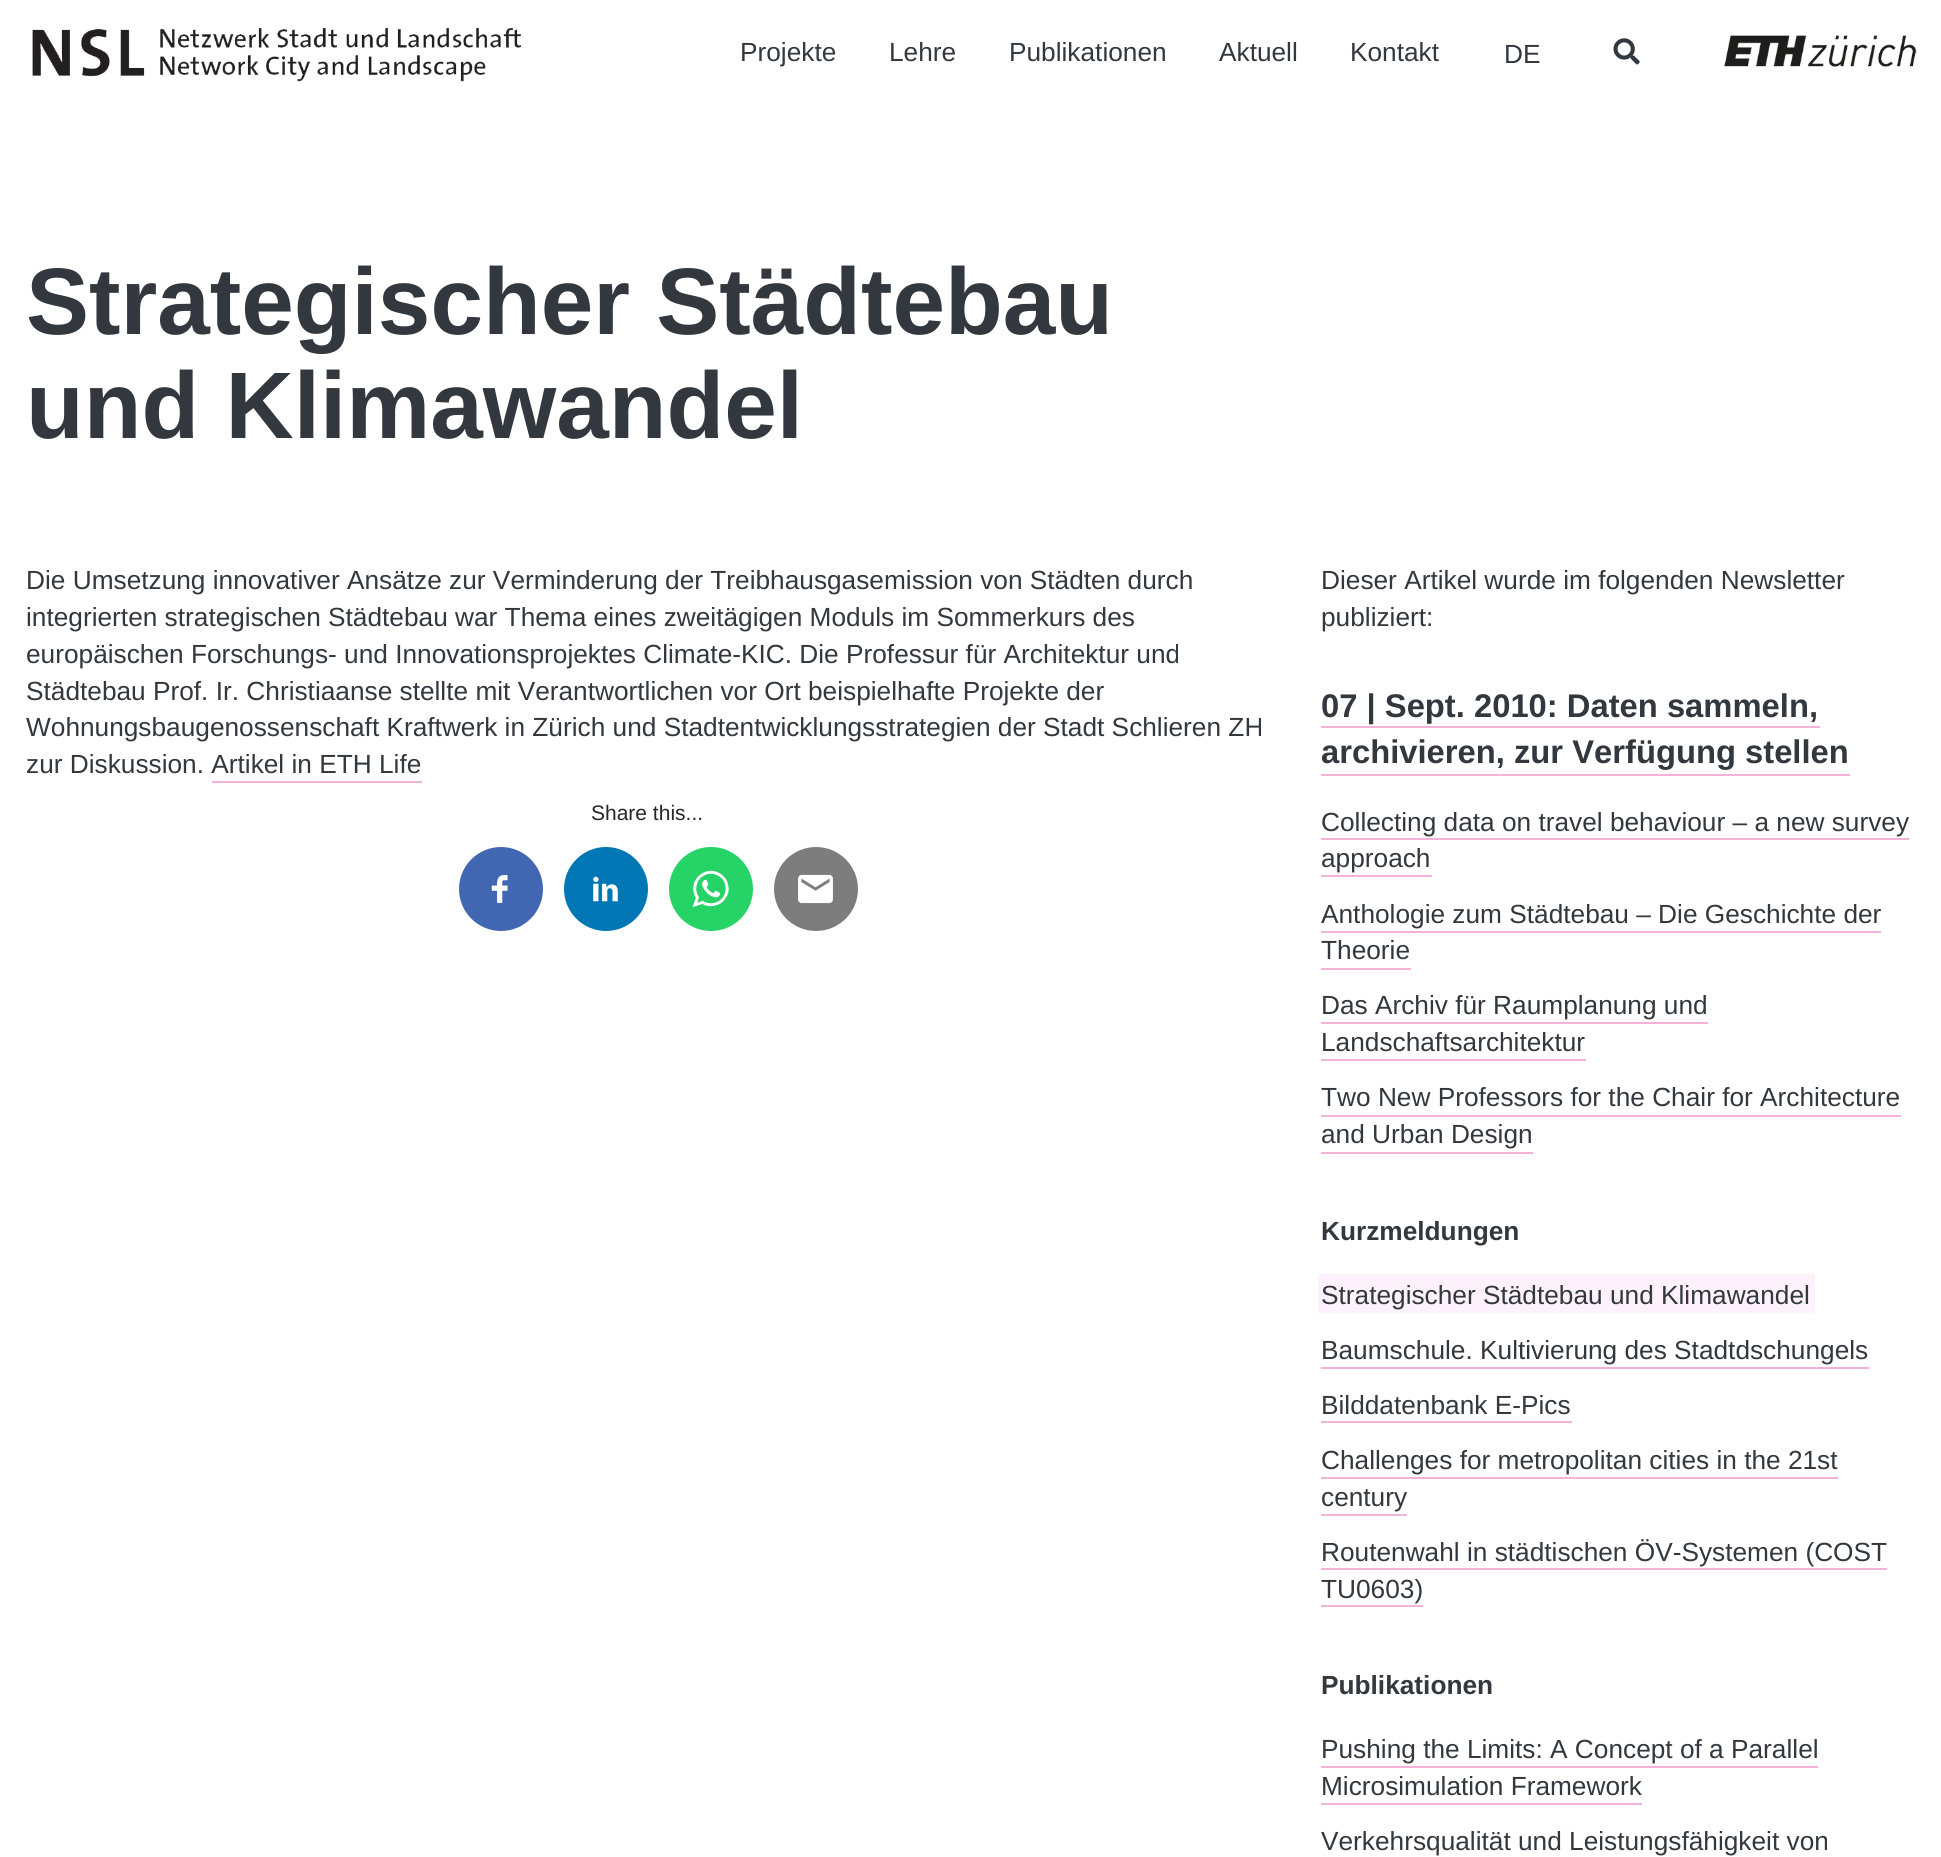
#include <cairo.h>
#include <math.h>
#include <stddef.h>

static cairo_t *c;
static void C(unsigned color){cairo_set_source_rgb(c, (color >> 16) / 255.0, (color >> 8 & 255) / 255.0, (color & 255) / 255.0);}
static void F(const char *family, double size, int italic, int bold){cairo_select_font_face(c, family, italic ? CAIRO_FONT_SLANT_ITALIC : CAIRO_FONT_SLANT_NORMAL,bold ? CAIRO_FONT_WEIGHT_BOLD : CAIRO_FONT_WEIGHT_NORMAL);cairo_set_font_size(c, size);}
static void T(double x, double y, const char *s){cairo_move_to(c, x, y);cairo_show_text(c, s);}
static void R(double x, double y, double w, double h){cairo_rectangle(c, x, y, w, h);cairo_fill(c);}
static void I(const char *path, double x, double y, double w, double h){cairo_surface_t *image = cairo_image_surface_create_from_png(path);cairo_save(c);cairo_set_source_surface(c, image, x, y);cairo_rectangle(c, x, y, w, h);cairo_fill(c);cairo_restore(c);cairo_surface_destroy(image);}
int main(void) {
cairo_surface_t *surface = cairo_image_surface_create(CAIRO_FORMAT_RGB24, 1941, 1857);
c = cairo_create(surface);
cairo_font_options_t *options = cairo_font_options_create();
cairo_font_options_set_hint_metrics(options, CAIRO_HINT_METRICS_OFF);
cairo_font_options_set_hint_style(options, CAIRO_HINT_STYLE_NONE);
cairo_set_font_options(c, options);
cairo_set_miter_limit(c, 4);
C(0xffffff);
cairo_paint(c);
I("1.png",32,28,489,54);
F("Liberation Sans",26.25,0,0);
C(0x32383e);
T(740,61,"Projekte");
T(889,61,"Lehre");
T(1009,61,"Publikationen");
T(1219,61,"Aktuell");
T(1350,61,"Kontakt");
T(1504,63,"DE");
I("2.png",1613,38,27,27);
I("3.png",1723,35,194,32);
F("Liberation Sans",94.5,0,1);
T(26,334,"Strategischer Städtebau");
T(26,438,"und Klimawandel");
F("Liberation Sans",26.25,0,0);
T(26,589,"Die Umsetzung innovativer Ansätze zur Verminderung der Treibhausgasemission von Städten durch");
T(26,626,"integrierten strategischen Städtebau war Thema eines zweitägigen Moduls im Sommerkurs des");
T(26,663,"europäischen Forschungs- und Innovationsprojektes Climate-KIC. Die Professur für Architektur und");
T(26,700,"Städtebau Prof. Ir. Christiaanse stellte mit Verantwortlichen vor Ort beispielhafte Projekte der");
T(26,736,"Wohnungsbaugenossenschaft Kraftwerk in Zürich und Stadtentwicklungsstrategien der Stadt Schlieren ZH");
T(26,773,"zur Diskussion. Artikel in ETH Life");
C(0xf3b2da);
R(212,781,210,2);
F("Liberation Sans",21,0,0);
C(0x272727);
T(591,820,"Share this...");
C(0x4267b2);
cairo_new_path(c);
cairo_arc(c,501,889,42,0,2 * M_PI);
cairo_fill(c);
I("4.png",491,875,17,28);
C(0x0077b5);
cairo_arc(c,606,889,42,0,2 * M_PI);
cairo_fill(c);
I("5.png",593,876,25,26);
C(0x25d366);
cairo_arc(c,711,889,42,0,2 * M_PI);
cairo_fill(c);
I("6.png",692,870,37,38);
C(0x7d7d7d);
cairo_arc(c,816,889,42,0,2 * M_PI);
cairo_fill(c);
I("7.png",798,874,35,30);
F("Liberation Sans",26.25,0,0);
C(0x32383e);
T(1321,589,"Dieser Artikel wurde im folgenden Newsletter");
T(1321,626,"publiziert:");
F("Liberation Sans",32.75,0,1);
T(1321,717,"07 | Sept. 2010: Daten sammeln,");
C(0xf3b2da);
R(1321,726,499,2);
C(0x32383e);
T(1321,763,"archivieren, zur Verfügung stellen");
C(0xf3b2da);
R(1321,774,529,2);
F("Liberation Sans",26.25,0,0);
C(0x32383e);
T(1321,831,"Collecting data on travel behaviour – a new survey");
C(0xf3b2da);
R(1321,838,588,2);
C(0x32383e);
T(1321,867,"approach");
C(0xf3b2da);
R(1321,875,111,2);
C(0x32383e);
T(1321,923,"Anthologie zum Städtebau – Die Geschichte der");
C(0xf3b2da);
R(1321,931,560,2);
C(0x32383e);
T(1321,959,"Theorie");
C(0xf3b2da);
R(1321,968,90,2);
C(0x32383e);
T(1321,1014,"Das Archiv für Raumplanung und");
C(0xf3b2da);
R(1321,1022,387,2);
C(0x32383e);
T(1321,1051,"Landschaftsarchitektur");
C(0xf3b2da);
R(1321,1059,265,2);
C(0x32383e);
T(1321,1106,"Two New Professors for the Chair for Architecture");
C(0xf3b2da);
R(1321,1115,580,2);
C(0x32383e);
T(1321,1143,"and Urban Design");
C(0xf3b2da);
R(1321,1152,212,2);
F("Liberation Sans",26.25,0,1);
C(0x32383e);
T(1321,1240,"Kurzmeldungen");
C(0xfdf2fb);
cairo_new_path(c);
cairo_move_to(c,1318,1274);
cairo_line_to(c,1318,1313);
cairo_line_to(c,1806,1313);
cairo_line_to(c,1806,1312);
cairo_line_to(c,1321,1312);
cairo_line_to(c,1321,1274);
cairo_close_path(c);
cairo_fill(c);
cairo_new_path(c);
cairo_move_to(c,1327,1312);
cairo_line_to(c,1327,1313);
cairo_line_to(c,1815,1313);
cairo_line_to(c,1815,1274);
cairo_line_to(c,1810,1274);
cairo_line_to(c,1810,1312);
cairo_close_path(c);
cairo_fill(c);
R(1321,1274,489,38);
F("Liberation Sans",26.25,0,0);
C(0x32383e);
T(1321,1304,"Strategischer Städtebau und Klimawandel");
T(1321,1359,"Baumschule. Kultivierung des Stadtdschungels");
C(0xf3b2da);
R(1321,1367,548,2);
C(0x32383e);
T(1321,1414,"Bilddatenbank E-Pics");
C(0xf3b2da);
R(1321,1421,251,2);
C(0x32383e);
T(1321,1469,"Challenges for metropolitan cities in the 21st");
C(0xf3b2da);
R(1321,1477,517,2);
C(0x32383e);
T(1321,1506,"century");
C(0xf3b2da);
R(1321,1514,86,2);
C(0x32383e);
T(1321,1561,"Routenwahl in städtischen ÖV-Systemen (COST");
C(0xf3b2da);
R(1321,1568,566,2);
C(0x32383e);
T(1321,1598,"TU0603)");
C(0xf3b2da);
R(1321,1605,102,2);
F("Liberation Sans",26.25,0,1);
C(0x32383e);
T(1321,1694,"Publikationen");
F("Liberation Sans",26.25,0,0);
T(1321,1758,"Pushing the Limits: A Concept of a Parallel");
C(0xf3b2da);
R(1321,1766,497,2);
C(0x32383e);
T(1321,1795,"Microsimulation Framework");
C(0xf3b2da);
R(1321,1803,321,2);
C(0x32383e);
T(1321,1850,"Verkehrsqualität und Leistungsfähigkeit von");
cairo_surface_write_to_png(surface, "o.png");
cairo_font_options_destroy(options);
cairo_destroy(c);
cairo_surface_destroy(surface);
return 0;
}
